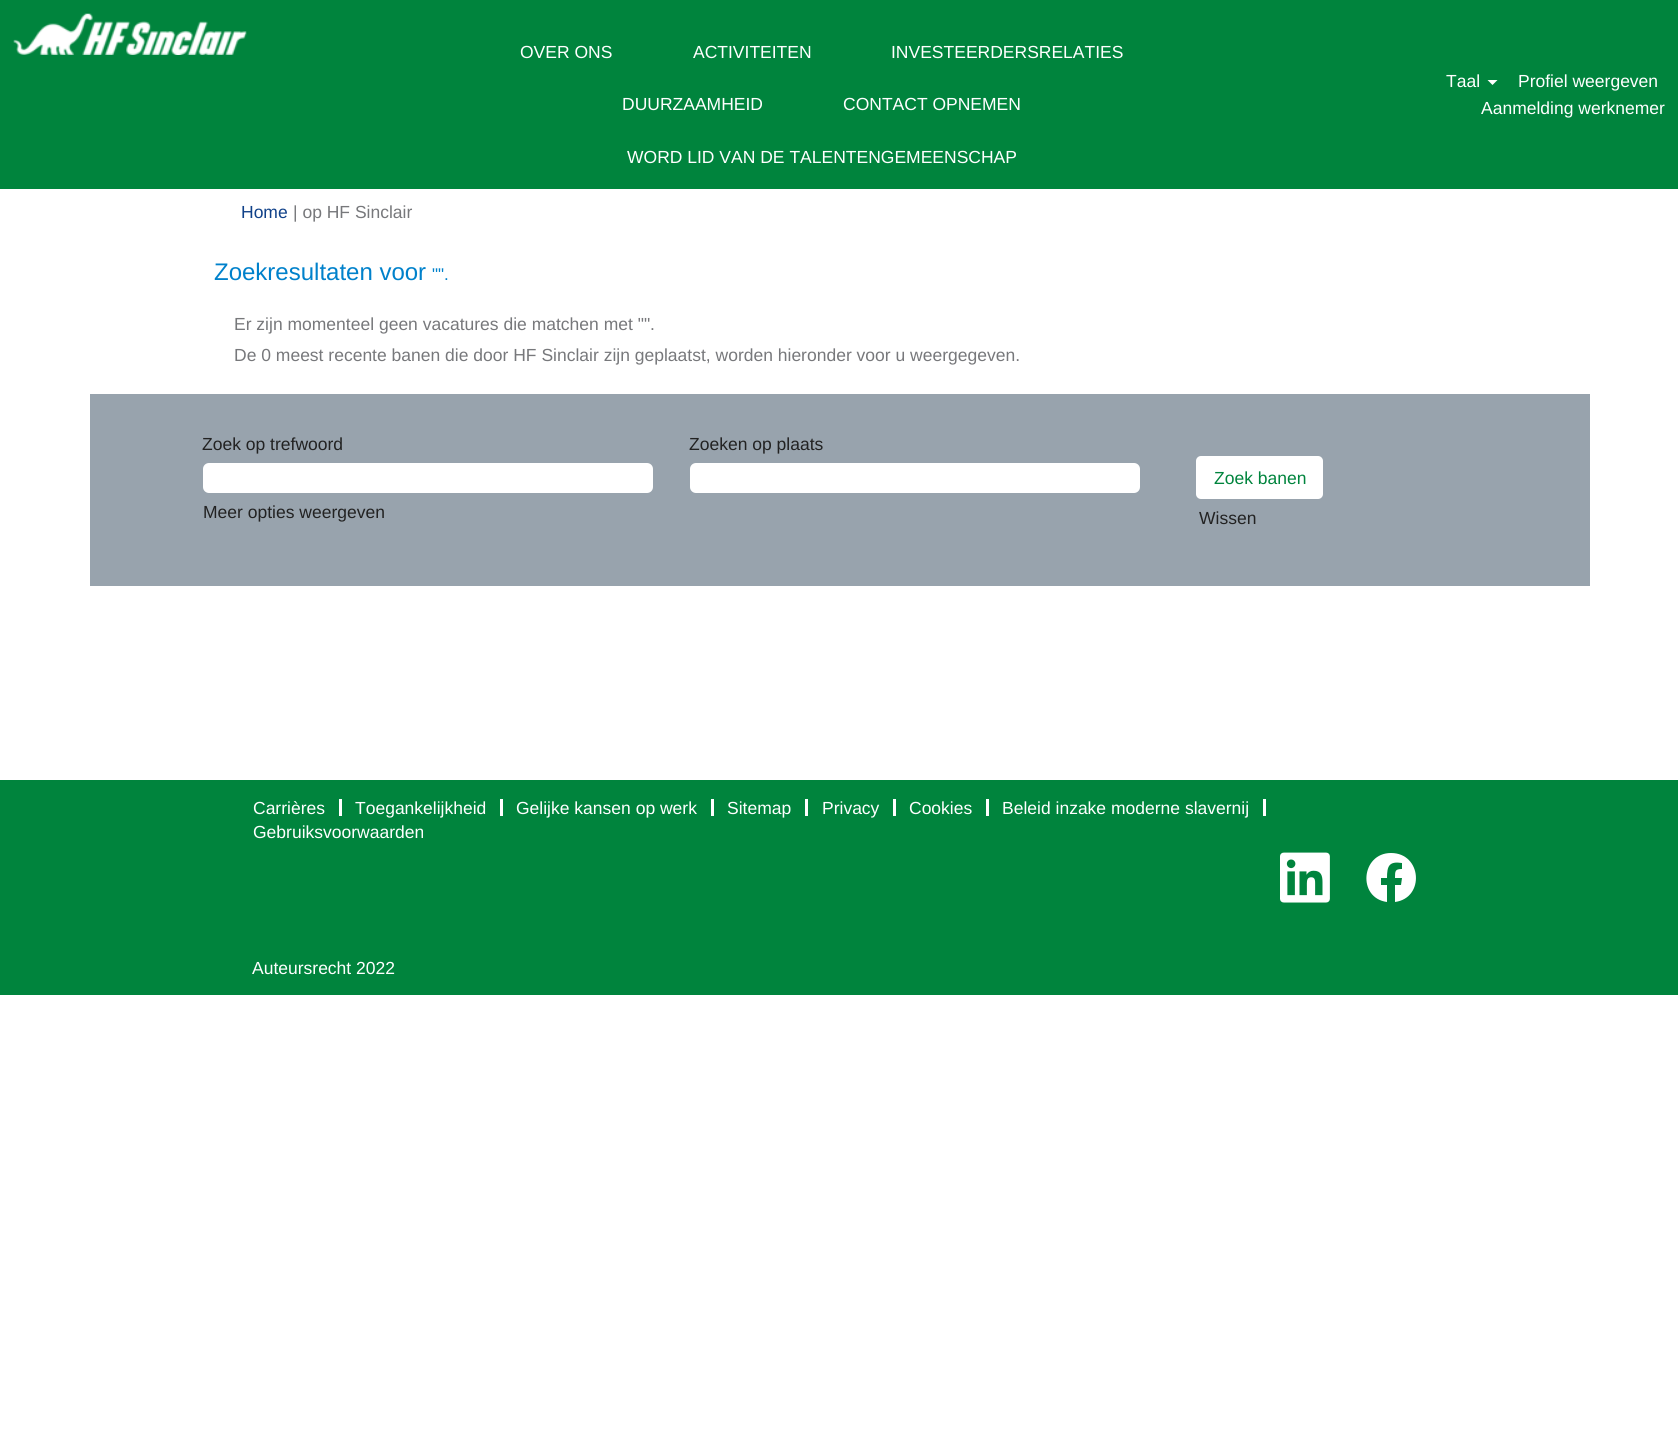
#include <cairo.h>
#include <math.h>
#include <stddef.h>

static cairo_t *c;
static void C(unsigned color){cairo_set_source_rgb(c, (color >> 16) / 255.0, (color >> 8 & 255) / 255.0, (color & 255) / 255.0);}
static void F(const char *family, double size, int italic, int bold){cairo_select_font_face(c, family, italic ? CAIRO_FONT_SLANT_ITALIC : CAIRO_FONT_SLANT_NORMAL,bold ? CAIRO_FONT_WEIGHT_BOLD : CAIRO_FONT_WEIGHT_NORMAL);cairo_set_font_size(c, size);}
static void T(double x, double y, const char *s){cairo_move_to(c, x, y);cairo_show_text(c, s);}
static void R(double x, double y, double w, double h){cairo_rectangle(c, x, y, w, h);cairo_fill(c);}
static void Q(double x, double y, double w, double h, double r){cairo_new_sub_path(c);cairo_arc(c, x + w - r, y + h - r, r, 0, M_PI / 2);cairo_arc(c, x + r, y + h - r, r, M_PI / 2, M_PI);cairo_arc(c, x + r, y + r, r, M_PI, 1.5 * M_PI);cairo_arc(c, x + w - r, y + r, r, 1.5 * M_PI, 2 * M_PI);cairo_close_path(c);}
static void I(const char *path, double x, double y, double w, double h){cairo_surface_t *image = cairo_image_surface_create_from_png(path);cairo_save(c);cairo_set_source_surface(c, image, x, y);cairo_rectangle(c, x, y, w, h);cairo_fill(c);cairo_restore(c);cairo_surface_destroy(image);}
int main(void) {
cairo_surface_t *surface = cairo_image_surface_create(CAIRO_FORMAT_RGB24, 1678, 1441);
c = cairo_create(surface);
cairo_font_options_t *options = cairo_font_options_create();
cairo_font_options_set_hint_metrics(options, CAIRO_HINT_METRICS_OFF);
cairo_font_options_set_hint_style(options, CAIRO_HINT_STYLE_NONE);
cairo_set_font_options(c, options);
cairo_set_miter_limit(c, 4);
C(0xffffff);
cairo_paint(c);
C(0x00843d);
R(0,0,1678,189);
I("1.png",13,13,234,42);
F("Liberation Sans",17.5,0,0);
C(0xffffff);
T(520,58,"OVER ONS");
T(693,58,"ACTIVITEITEN");
T(891,58,"INVESTEERDERSRELATIES");
T(622,110,"DUURZAAMHEID");
T(843,110,"CONTACT OPNEMEN");
T(627,163,"WORD LID VAN DE TALENTENGEMEENSCHAP");
T(1446,87,"Taal");
cairo_new_path(c);
cairo_move_to(c,1487.5,80);
cairo_line_to(c,1497.5,80);
cairo_line_to(c,1492.5,85);
cairo_close_path(c);
cairo_fill(c);
T(1518,87,"Profiel weergeven");
T(1481,114,"Aanmelding werknemer");
C(0x104189);
T(241,218,"Home");
C(0x77787b);
T(293,218,"| op HF Sinclair");
F("Liberation Sans",24,0,0);
C(0x0081cb);
T(214,280,"Zoekresultaten voor");
F("Liberation Sans",17,0,0);
T(432,280,"\"\".");
F("Liberation Sans",17.5,0,0);
C(0x77787b);
T(234,330,"Er zijn momenteel geen vacatures die matchen met \"\".");
T(234,361,"De 0 meest recente banen die door HF Sinclair zijn geplaatst, worden hieronder voor u weergegeven.");
C(0x98a3ad);
R(90,394,1500,192);
C(0x222222);
T(202,450,"Zoek op trefwoord");
C(0xffffff);
Q(203,463,450,30,6);
cairo_fill(c);
C(0x222222);
T(689,450,"Zoeken op plaats");
C(0xffffff);
Q(690,463,450,30,6);
cairo_fill(c);
C(0x222222);
T(203,518,"Meer opties weergeven");
C(0xffffff);
Q(1196,456,127,43,5);
cairo_fill(c);
C(0x00843d);
T(1214,484,"Zoek banen");
C(0x222222);
T(1199,524,"Wissen");
C(0x00843d);
R(0,780,1678,215);
C(0xffffff);
R(339,799,3,17);
T(253,814,"Carrières");
R(500,799,3,17);
T(355,814,"Toegankelijkheid");
R(711,799,3,17);
T(516,814,"Gelijke kansen op werk");
R(805,799,3,17);
T(727,814,"Sitemap");
R(893,799,3,17);
T(822,814,"Privacy");
R(986,799,3,17);
T(909,814,"Cookies");
R(1263,799,3,17);
T(1002,814,"Beleid inzake moderne slavernij");
T(253,838,"Gebruiksvoorwaarden");
I("2.png",1280,852,50,51);
cairo_new_path(c);
cairo_move_to(c,1391,853);
cairo_curve_to(c,1361,853,1357,898,1387,902);
cairo_line_to(c,1387,885);
cairo_line_to(c,1381,885);
cairo_line_to(c,1381,878);
cairo_line_to(c,1387,878);
cairo_curve_to(c,1387,866,1389,861,1402,863);
cairo_line_to(c,1402,869);
cairo_curve_to(c,1395,869,1395,871,1395,878);
cairo_line_to(c,1402,878);
cairo_line_to(c,1401,885);
cairo_line_to(c,1395,885);
cairo_line_to(c,1395,902);
cairo_curve_to(c,1425,898,1422,853,1391,853);
cairo_close_path(c);
cairo_fill(c);
T(252,974,"Auteursrecht 2022");
cairo_surface_write_to_png(surface, "o.png");
cairo_font_options_destroy(options);
cairo_destroy(c);
cairo_surface_destroy(surface);
return 0;
}
